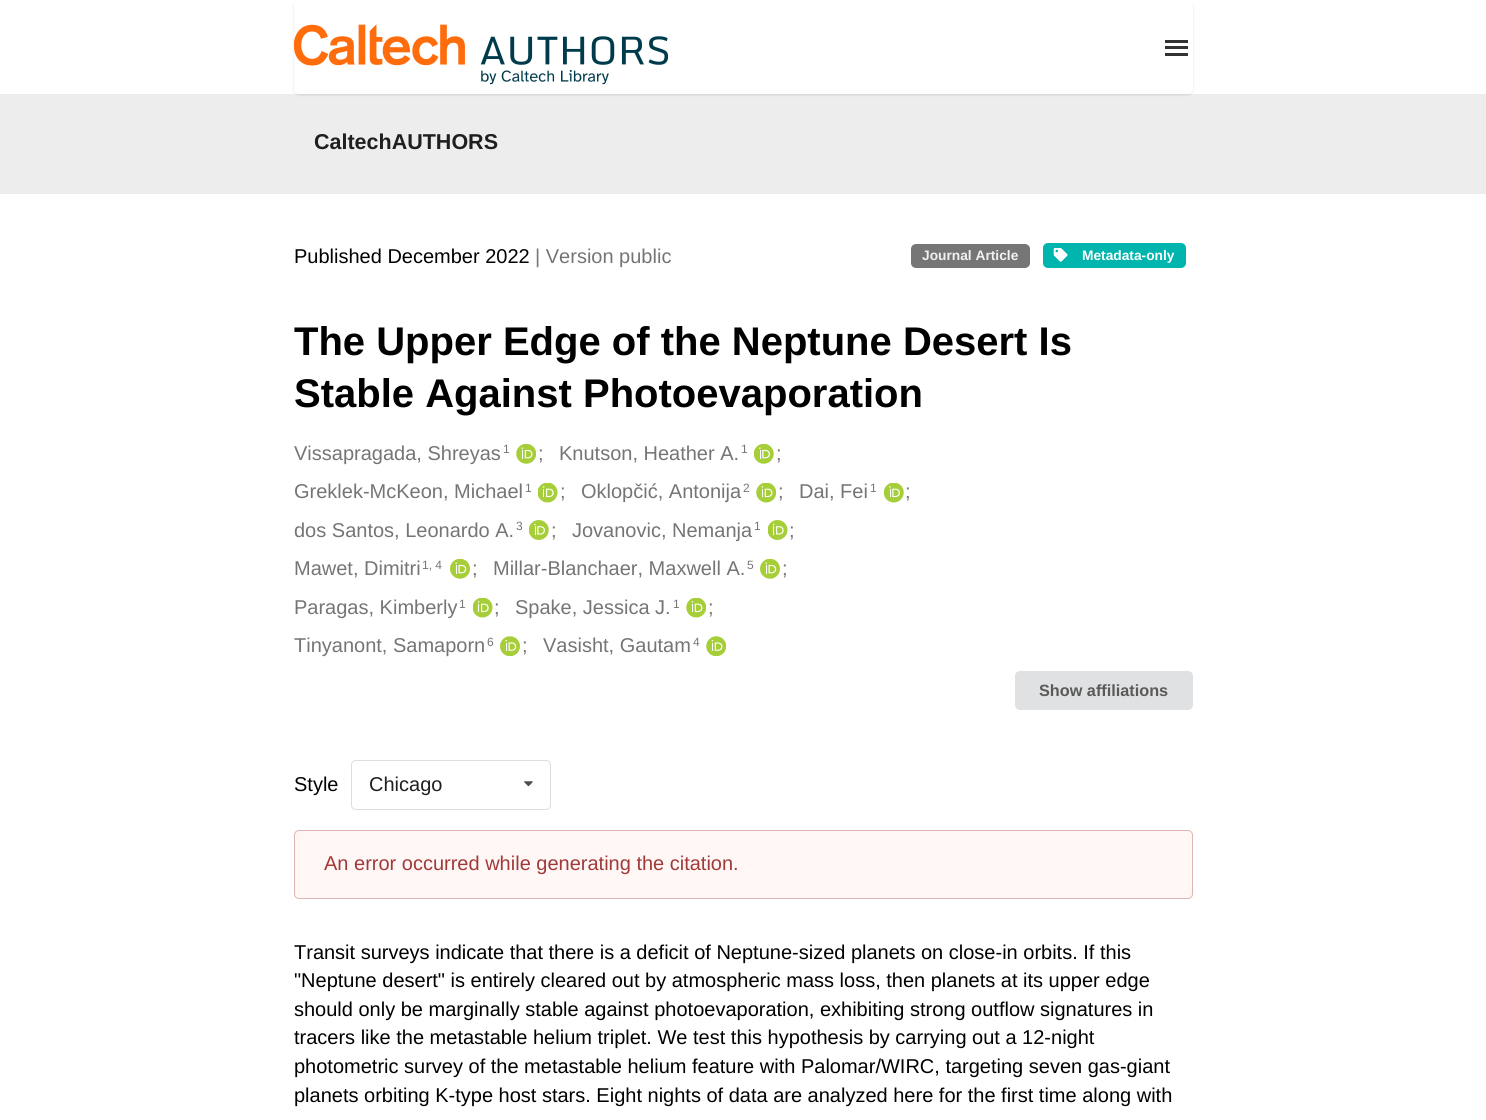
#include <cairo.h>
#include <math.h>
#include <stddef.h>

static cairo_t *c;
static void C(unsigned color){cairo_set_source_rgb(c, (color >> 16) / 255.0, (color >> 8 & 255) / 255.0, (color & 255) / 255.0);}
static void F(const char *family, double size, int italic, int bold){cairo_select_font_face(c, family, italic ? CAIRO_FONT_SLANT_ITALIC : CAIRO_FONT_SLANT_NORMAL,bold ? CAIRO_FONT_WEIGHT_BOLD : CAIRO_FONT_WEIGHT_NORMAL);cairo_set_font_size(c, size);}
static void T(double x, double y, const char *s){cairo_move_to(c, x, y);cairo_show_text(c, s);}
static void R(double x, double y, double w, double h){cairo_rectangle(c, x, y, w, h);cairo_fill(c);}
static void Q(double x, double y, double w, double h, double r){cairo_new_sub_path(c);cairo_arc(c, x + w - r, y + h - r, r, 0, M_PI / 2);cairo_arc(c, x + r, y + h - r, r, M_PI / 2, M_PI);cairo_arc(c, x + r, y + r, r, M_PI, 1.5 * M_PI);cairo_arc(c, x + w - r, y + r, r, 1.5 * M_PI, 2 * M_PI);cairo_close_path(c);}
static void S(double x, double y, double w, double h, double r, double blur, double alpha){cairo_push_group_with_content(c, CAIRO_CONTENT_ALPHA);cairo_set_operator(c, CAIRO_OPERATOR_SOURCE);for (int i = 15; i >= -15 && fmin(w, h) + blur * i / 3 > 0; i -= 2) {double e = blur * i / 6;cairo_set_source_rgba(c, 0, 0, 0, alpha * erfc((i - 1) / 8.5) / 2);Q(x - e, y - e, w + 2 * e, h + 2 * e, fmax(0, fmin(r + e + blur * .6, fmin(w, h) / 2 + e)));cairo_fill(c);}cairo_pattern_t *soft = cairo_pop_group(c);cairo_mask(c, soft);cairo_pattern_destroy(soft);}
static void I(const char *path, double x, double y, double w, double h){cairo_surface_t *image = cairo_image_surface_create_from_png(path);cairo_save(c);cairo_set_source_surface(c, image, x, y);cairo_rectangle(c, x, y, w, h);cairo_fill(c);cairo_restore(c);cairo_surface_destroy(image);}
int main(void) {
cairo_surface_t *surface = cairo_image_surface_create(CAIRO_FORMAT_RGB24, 1486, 1120);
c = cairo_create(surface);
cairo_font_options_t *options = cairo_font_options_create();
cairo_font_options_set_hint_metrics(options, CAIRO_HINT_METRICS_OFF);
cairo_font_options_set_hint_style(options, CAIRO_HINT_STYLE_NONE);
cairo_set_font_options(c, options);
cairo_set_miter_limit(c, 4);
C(0xffffff);
cairo_paint(c);
C(0xededed);
R(0,94,1486,100);
cairo_save(c);
cairo_set_fill_rule(c,CAIRO_FILL_RULE_EVEN_ODD);
cairo_new_path(c);
cairo_move_to(c,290,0);
cairo_line_to(c,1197,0);
cairo_line_to(c,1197,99);
cairo_line_to(c,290,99);
cairo_close_path(c);
cairo_move_to(c,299,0);
cairo_line_to(c,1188,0);
cairo_curve_to(c,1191,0,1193,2,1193,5);
cairo_line_to(c,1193,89);
cairo_curve_to(c,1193,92,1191,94,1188,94);
cairo_line_to(c,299,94);
cairo_curve_to(c,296,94,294,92,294,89);
cairo_line_to(c,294,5);
cairo_curve_to(c,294,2,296,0,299,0);
cairo_close_path(c);
cairo_clip(c);
C(0x222426);
S(294,1,899,94,5,1,.15);
cairo_restore(c);
I("1.png",294,24,375,61);
C(0x333333);
R(1165,46,23,3);
R(1165,40,23,3);
R(1165,53,23,3);
F("Liberation Sans",21.5,0,1);
C(0x1f1f1f);
T(314,149,"CaltechAUTHORS");
F("Liberation Sans",20,0,0);
C(0x000000);
T(294,263,"Published December 2022");
C(0x757575);
T(535,263,"| Version public");
C(0x767676);
Q(911,244,119,24,5);
cairo_fill(c);
F("Liberation Sans",13.75,0,1);
C(0xf1f1f1);
T(922,260,"Journal Article");
C(0x00b5ad);
Q(1043,243,143,25,5);
cairo_fill(c);
I("2.png",1053,248,15,14);
C(0xffffff);
T(1082,260,"Metadata-only");
F("Liberation Sans",40,0,1);
C(0x000000);
T(294,355,"The Upper Edge of the Neptune Desert Is");
T(294,407,"Stable Against Photoevaporation");
F("Liberation Sans",20,0,0);
C(0x757575);
T(294,460,"Vissapragada, Shreyas");
F("Liberation Sans",12,0,0);
T(503,453,"1");
I("3.png",516,444,20,20);
F("Liberation Sans",20,0,0);
T(538,460,";");
T(559,460,"Knutson, Heather A.");
F("Liberation Sans",12,0,0);
T(741,453,"1");
I("4.png",754,444,20,20);
F("Liberation Sans",20,0,0);
T(776,460,";");
T(294,498,"Greklek-McKeon, Michael");
F("Liberation Sans",12,0,0);
T(525,492,"1");
I("5.png",538,483,20,20);
F("Liberation Sans",20,0,0);
T(560,498,";");
T(581,498,"Oklopčić, Antonija");
F("Liberation Sans",12,0,0);
T(743,492,"2");
I("6.png",756,483,20,20);
F("Liberation Sans",20,0,0);
T(778,498,";");
T(799,498,"Dai, Fei");
F("Liberation Sans",12,0,0);
T(870,492,"1");
I("7.png",884,483,20,20);
F("Liberation Sans",20,0,0);
T(905,498,";");
T(294,537,"dos Santos, Leonardo A.");
F("Liberation Sans",12,0,0);
T(516,530,"3");
I("8.png",529,520,20,20);
F("Liberation Sans",20,0,0);
T(551,537,";");
T(572,537,"Jovanovic, Nemanja");
F("Liberation Sans",12,0,0);
T(754,530,"1");
I("9.png",768,520,20,20);
F("Liberation Sans",20,0,0);
T(789,537,";");
T(294,575,"Mawet, Dimitri");
F("Liberation Sans",12,0,0);
T(422,569,"1, 4");
I("10.png",450,559,20,20);
F("Liberation Sans",20,0,0);
T(472,575,";");
T(493,575,"Millar-Blanchaer, Maxwell A.");
F("Liberation Sans",12,0,0);
T(747,569,"5");
I("10.png",760,559,20,20);
F("Liberation Sans",20,0,0);
T(782,575,";");
T(294,614,"Paragas, Kimberly");
F("Liberation Sans",12,0,0);
T(459,608,"1");
I("5.png",473,598,20,20);
F("Liberation Sans",20,0,0);
T(494,614,";");
T(515,614,"Spake, Jessica J.");
F("Liberation Sans",12,0,0);
T(673,608,"1");
I("6.png",686,598,20,20);
F("Liberation Sans",20,0,0);
T(708,614,";");
T(294,652,"Tinyanont, Samaporn");
F("Liberation Sans",12,0,0);
T(487,646,"6");
I("11.png",500,636,20,20);
F("Liberation Sans",20,0,0);
T(522,652,";");
T(543,652,"Vasisht, Gautam");
F("Liberation Sans",12,0,0);
T(693,646,"4");
I("12.png",706,636,20,20);
C(0xe0e1e2);
Q(1015,671,178,39,5);
cairo_fill(c);
F("Liberation Sans",16.25,0,1);
C(0x5a5a5a);
T(1039,696,"Show affiliations");
F("Liberation Sans",20,0,0);
C(0x000000);
T(294,791,"Style");
Q(351.5,760.5,199,49,4.5);
C(0xdedede);
cairo_set_line_width(c,1);
cairo_stroke(c);
C(0x1f1f1f);
T(369,791,"Chicago");
I("13.png",524,781,9,6);
C(0xfff6f6);
Q(294.5,830.5,898,68,4.5);
cairo_fill_preserve(c);
C(0xe0b4b4);
cairo_stroke(c);
C(0x9f3a38);
T(324,870,"An error occurred while generating the citation.");
C(0x000000);
T(294,959,"Transit surveys indicate that there is a deficit of Neptune-sized planets on close-in orbits. If this");
T(294,987,"\"Neptune desert\" is entirely cleared out by atmospheric mass loss, then planets at its upper edge");
T(294,1016,"should only be marginally stable against photoevaporation, exhibiting strong outflow signatures in");
T(294,1044,"tracers like the metastable helium triplet. We test this hypothesis by carrying out a 12-night");
T(294,1073,"photometric survey of the metastable helium feature with Palomar/WIRC, targeting seven gas-giant");
T(294,1102,"planets orbiting K-type host stars. Eight nights of data are analyzed here for the first time along with");
cairo_surface_write_to_png(surface, "o.png");
cairo_font_options_destroy(options);
cairo_destroy(c);
cairo_surface_destroy(surface);
return 0;
}
